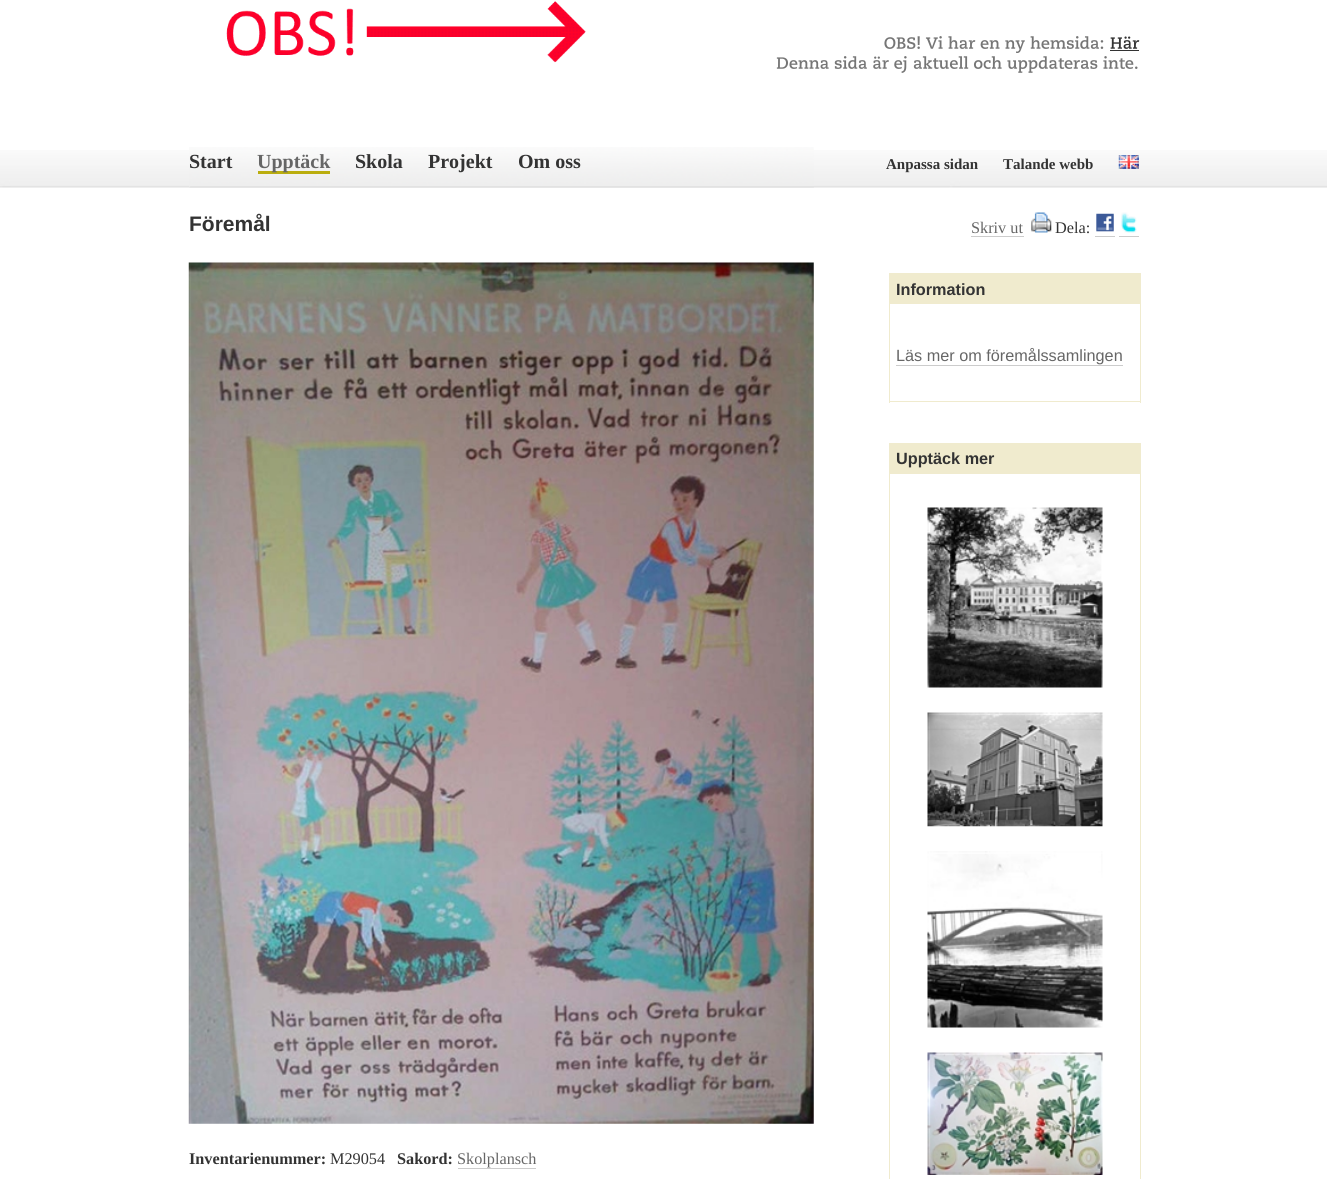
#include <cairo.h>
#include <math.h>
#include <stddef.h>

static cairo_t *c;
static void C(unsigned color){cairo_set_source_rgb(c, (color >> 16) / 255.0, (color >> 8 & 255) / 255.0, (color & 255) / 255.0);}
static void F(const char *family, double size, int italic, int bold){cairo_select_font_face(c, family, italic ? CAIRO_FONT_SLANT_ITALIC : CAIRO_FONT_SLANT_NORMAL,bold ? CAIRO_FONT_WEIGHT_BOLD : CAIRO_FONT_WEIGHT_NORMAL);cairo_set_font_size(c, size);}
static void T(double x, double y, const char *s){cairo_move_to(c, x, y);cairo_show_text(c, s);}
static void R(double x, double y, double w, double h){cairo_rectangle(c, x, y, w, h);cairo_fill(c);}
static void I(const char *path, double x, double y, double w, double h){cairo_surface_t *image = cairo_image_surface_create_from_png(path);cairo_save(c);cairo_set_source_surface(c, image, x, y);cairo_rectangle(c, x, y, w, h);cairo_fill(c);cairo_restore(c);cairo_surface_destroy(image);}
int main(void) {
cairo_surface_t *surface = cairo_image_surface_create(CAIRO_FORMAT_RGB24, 1327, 1179);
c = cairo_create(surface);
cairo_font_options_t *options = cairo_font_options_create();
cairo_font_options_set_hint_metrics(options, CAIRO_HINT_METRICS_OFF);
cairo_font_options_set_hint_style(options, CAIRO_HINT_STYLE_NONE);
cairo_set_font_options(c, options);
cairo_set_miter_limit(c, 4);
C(0xffffff);
cairo_paint(c);
I("1.png",0,150,1327,38);
I("2.png",226,1,360,62);
I("3.png",884,36,220,17);
I("4.png",1110,36,30,13);
C(0x333333);
R(1110,50,29,1);
I("5.png",776,56,362,17);
I("6.png",189,147,625,41);
F("Liberation Serif",20,0,1);
T(189,168,"Start");
C(0xbaad0e);
R(258,171,72,3);
C(0x666666);
T(257,168,"Upptäck");
C(0x333333);
T(355,168,"Skola");
T(428,168,"Projekt");
T(518,168,"Om oss");
F("Liberation Serif",15,0,1);
T(886,169,"Anpassa sidan");
T(1003,169,"Talande webb");
I("7.png",1118,155,21,14);
F("Liberation Sans",21,0,1);
T(189,231,"Föremål");
I("8.png",188,262,626,862);
F("Liberation Serif",16.25,0,1);
T(189,1164,"Inventarienummer:");
F("Liberation Serif",16.25,0,0);
T(330,1164,"M29054");
F("Liberation Serif",16.25,0,1);
T(397,1164,"Sakord:");
F("Liberation Serif",16.25,0,0);
C(0x666666);
T(457,1164,"Skolplansch");
C(0xcccccc);
R(458,1168,78,1);
C(0x666666);
T(971,233,"Skriv ut");
C(0xcccccc);
R(971,236,53,1);
I("9.png",1031,212,21,21);
C(0x333333);
T(1055,233,"Dela:");
C(0xcccccc);
R(1095,236,20,1);
R(1119,236,20,1);
I("10.png",1096,213,18,19);
I("11.png",1121,212,16,21);
C(0xf0ebce);
R(890,273,250,31);
R(1140,273,1,130);
R(889,401,252,1);
R(889,273,1,130);
F("Liberation Sans",16.25,0,1);
C(0x333333);
T(896,295,"Information");
F("Liberation Sans",16.25,0,0);
C(0x666666);
T(896,361,"Läs mer om föremålssamlingen");
C(0xcccccc);
R(896,365,227,1);
C(0xf0ebce);
R(890,443,250,31);
R(1140,443,1,736);
R(889,443,1,736);
F("Liberation Sans",16.25,0,1);
C(0x333333);
T(896,464,"Upptäck mer");
I("12.png",927,507,176,181);
I("13.png",927,712,176,115);
I("14.png",927,851,176,177);
I("15.png",927,1052,176,123);
cairo_surface_write_to_png(surface, "o.png");
cairo_font_options_destroy(options);
cairo_destroy(c);
cairo_surface_destroy(surface);
return 0;
}
